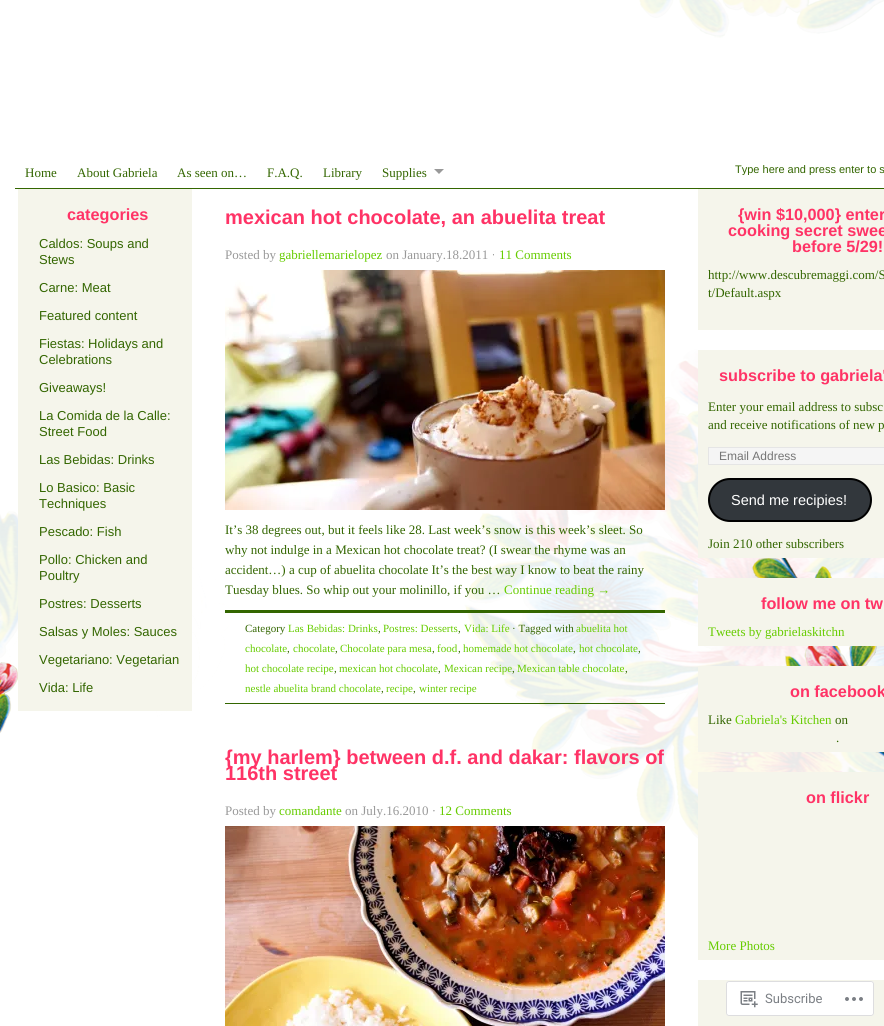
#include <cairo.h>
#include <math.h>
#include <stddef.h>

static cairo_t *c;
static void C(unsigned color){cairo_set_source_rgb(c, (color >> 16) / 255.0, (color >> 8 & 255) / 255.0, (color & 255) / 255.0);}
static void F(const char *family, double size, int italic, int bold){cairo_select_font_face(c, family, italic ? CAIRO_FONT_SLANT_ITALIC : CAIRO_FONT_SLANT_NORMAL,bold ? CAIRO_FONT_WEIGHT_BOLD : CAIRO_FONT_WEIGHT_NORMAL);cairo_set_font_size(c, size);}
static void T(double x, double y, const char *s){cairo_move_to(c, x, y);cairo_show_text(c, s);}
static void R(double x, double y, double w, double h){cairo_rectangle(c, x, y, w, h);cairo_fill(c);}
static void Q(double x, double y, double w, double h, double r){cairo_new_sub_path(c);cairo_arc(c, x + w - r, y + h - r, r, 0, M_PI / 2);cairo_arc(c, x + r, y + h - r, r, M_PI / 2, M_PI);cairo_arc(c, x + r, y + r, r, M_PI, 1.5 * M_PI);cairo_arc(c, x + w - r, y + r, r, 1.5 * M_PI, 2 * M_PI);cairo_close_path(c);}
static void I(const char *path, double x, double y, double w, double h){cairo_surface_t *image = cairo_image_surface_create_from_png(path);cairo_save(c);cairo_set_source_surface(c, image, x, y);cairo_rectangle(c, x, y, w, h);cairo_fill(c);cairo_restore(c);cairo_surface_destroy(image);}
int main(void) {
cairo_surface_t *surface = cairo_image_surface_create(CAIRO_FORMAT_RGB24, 884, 1026);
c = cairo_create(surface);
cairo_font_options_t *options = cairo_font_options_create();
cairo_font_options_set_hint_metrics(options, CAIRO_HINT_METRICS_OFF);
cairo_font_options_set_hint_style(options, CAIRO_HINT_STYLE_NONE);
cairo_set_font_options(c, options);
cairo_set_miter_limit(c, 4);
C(0xffffff);
cairo_paint(c);
I("1.png",0,0,884,1026);
F("Liberation Serif",13,0,0);
C(0x336600);
T(25,177,"Home");
T(77,177,"About Gabriela");
T(177,177,"As seen on…");
T(267,177,"F.A.Q.");
T(323,177,"Library");
T(382,177,"Supplies");
C(0x999999);
cairo_new_path(c);
cairo_move_to(c,434,169);
cairo_line_to(c,444,169);
cairo_line_to(c,439,174);
cairo_close_path(c);
cairo_fill(c);
cairo_save(c);
cairo_rectangle(c,735,163,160,12);
cairo_clip(c);
F("Liberation Sans",11,0,0);
C(0x336600);
T(735,173,"Type here and press enter to s");
cairo_restore(c);
C(0x336600);
R(15,188,869,1);
C(0xf5f5eb);
R(18,189,174,522);
F("Liberation Sans",16.25,0,1);
C(0xff3366);
T(67,220,"categories");
F("Liberation Sans",13,0,0);
C(0x336600);
T(39,248,"Caldos: Soups and");
T(39,264,"Stews");
T(39,292,"Carne: Meat");
T(39,320,"Featured content");
T(39,348,"Fiestas: Holidays and");
T(39,364,"Celebrations");
T(39,392,"Giveaways!");
T(39,420,"La Comida de la Calle:");
T(39,436,"Street Food");
T(39,464,"Las Bebidas: Drinks");
T(39,492,"Lo Basico: Basic");
T(39,508,"Techniques");
T(39,536,"Pescado: Fish");
T(39,564,"Pollo: Chicken and");
T(39,580,"Poultry");
T(39,608,"Postres: Desserts");
T(39,636,"Salsas y Moles: Sauces");
T(39,664,"Vegetariano: Vegetarian");
T(39,692,"Vida: Life");
F("Liberation Sans",20,0,1);
C(0xff3366);
T(225,224,"mexican hot chocolate, an abuelita treat");
F("Liberation Serif",13,0,0);
C(0x999999);
T(225,259,"Posted by");
C(0x66cc00);
T(279,259,"gabriellemarielopez");
C(0x999999);
T(386,259,"on January.18.2011 ·");
C(0x66cc00);
T(499,259,"11 Comments");
I("2.png",225,270,440,240);
C(0x336600);
T(225,534,"It’s 38 degrees out, but it feels like 28. Last week’s snow is this week’s sleet. So");
T(225,554,"why not indulge in a Mexican hot chocolate treat? (I swear the rhyme was an");
T(225,574,"accident…) a cup of abuelita chocolate It’s the best way I know to beat the rainy");
T(225,594,"Tuesday blues. So whip out your molinillo, if you …");
C(0x66cc00);
T(504,594,"Continue reading →");
C(0x336600);
R(225,610,440,3);
R(225,703,440,1);
F("Liberation Serif",11,0,0);
T(245,632,"Category");
C(0x66cc00);
T(288,632,"Las Bebidas: Drinks");
C(0x336600);
T(378,632,",");
C(0x66cc00);
T(383,632,"Postres: Desserts");
C(0x336600);
T(458,632,",");
C(0x66cc00);
T(464,632,"Vida: Life");
C(0x336600);
T(512,632,"· Tagged with");
C(0x66cc00);
T(576,632,"abuelita hot");
T(245,652,"chocolate");
C(0x336600);
T(287,652,",");
C(0x66cc00);
T(293,652,"chocolate");
C(0x336600);
T(335,652,",");
C(0x66cc00);
T(340,652,"Chocolate para mesa");
C(0x336600);
T(432,652,",");
C(0x66cc00);
T(437,652,"food");
C(0x336600);
T(458,652,",");
C(0x66cc00);
T(463,652,"homemade hot chocolate");
C(0x336600);
T(573,652,",");
C(0x66cc00);
T(579,652,"hot chocolate");
C(0x336600);
T(638,652,",");
C(0x66cc00);
T(245,672,"hot chocolate recipe");
C(0x336600);
T(334,672,",");
C(0x66cc00);
T(339,672,"mexican hot chocolate");
C(0x336600);
T(438,672,",");
C(0x66cc00);
T(444,672,"Mexican recipe");
C(0x336600);
T(512,672,",");
C(0x66cc00);
T(517,672,"Mexican table chocolate");
C(0x336600);
T(625,672,",");
C(0x66cc00);
T(245,692,"nestle abuelita brand chocolate");
C(0x336600);
T(381,692,",");
C(0x66cc00);
T(386,692,"recipe");
C(0x336600);
T(413,692,",");
C(0x66cc00);
T(419,692,"winter recipe");
F("Liberation Sans",20,0,1);
C(0xff3366);
T(225,764,"{my harlem} between d.f. and dakar: flavors of");
T(225,780,"116th street");
F("Liberation Serif",13,0,0);
C(0x999999);
T(225,815,"Posted by");
C(0x66cc00);
T(279,815,"comandante");
C(0x999999);
T(345,815,"on July.16.2010 ·");
C(0x66cc00);
T(439,815,"12 Comments");
I("3.png",225,826,440,200);
C(0xf5f5eb);
R(698,189,186,141);
F("Liberation Sans",16.25,0,1);
C(0xff3366);
T(738,220,"{win $10,000} enter");
T(728,236,"cooking secret swee");
T(792,252,"before 5/29!");
F("Liberation Serif",13,0,0);
C(0x336600);
T(708,279,"http://www.descubremaggi.com/S");
T(708,297,"t/Default.aspx");
C(0xf5f5eb);
R(698,350,186,208);
F("Liberation Sans",16.25,0,1);
C(0xff3366);
T(719,381,"subscribe to gabriela'");
F("Liberation Serif",13,0,0);
C(0x336600);
T(708,411,"Enter your email address to subsc");
T(708,429,"and receive notifications of new p");
C(0xf5f5f5);
cairo_rectangle(c,708.5,447.5,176,17);
cairo_fill_preserve(c);
C(0xe5e5e5);
cairo_set_line_width(c,1);
cairo_stroke(c);
F("Liberation Sans",12,0,0);
C(0x757575);
T(719,460,"Email Address");
C(0x32373c);
Q(709,479,162,42,21);
cairo_fill_preserve(c);
C(0x000000);
cairo_set_line_width(c,2);
cairo_stroke(c);
F("Liberation Sans",14.5,0,0);
C(0xffffff);
T(731,505,"Send me recipies!");
F("Liberation Serif",13,0,0);
C(0x336600);
T(708,548,"Join 210 other subscribers");
C(0xf5f5eb);
R(698,578,186,68);
F("Liberation Sans",16.25,0,1);
C(0xff3366);
T(761,609,"follow me on tw");
F("Liberation Serif",13,0,0);
C(0x66cc00);
T(708,636,"Tweets by gabrielaskitchn");
C(0xf5f5eb);
R(698,666,186,86);
F("Liberation Sans",16.25,0,1);
C(0xff3366);
T(790,697,"on facebook");
F("Liberation Serif",13,0,0);
C(0x336600);
T(708,724,"Like");
C(0x66cc00);
T(735,724,"Gabriela's Kitchen");
C(0x336600);
T(835,724,"on");
T(836,742,".");
C(0xf5f5eb);
R(698,772,186,188);
F("Liberation Sans",16.25,0,1);
C(0xff3366);
T(806,803,"on flickr");
F("Liberation Serif",13,0,0);
C(0x66cc00);
T(708,950,"More Photos");
C(0xf5f5eb);
R(698,980,186,46);
cairo_set_source_rgba(c,1,1,1,0.98);
Q(726,981,148,35,3);
cairo_fill(c);
Q(726.5,981.5,147,34,2.5);
cairo_set_source_rgba(c,0.863,0.863,0.871,0.98);
cairo_set_line_width(c,1);
cairo_stroke(c);
I("4.png",740,991,18,17);
F("Roboto",13,0,0);
C(0x7b7f84);
T(765,1003,"Subscribe");
I("5.png",845,997,18,4);
cairo_surface_write_to_png(surface, "o.png");
cairo_font_options_destroy(options);
cairo_destroy(c);
cairo_surface_destroy(surface);
return 0;
}
